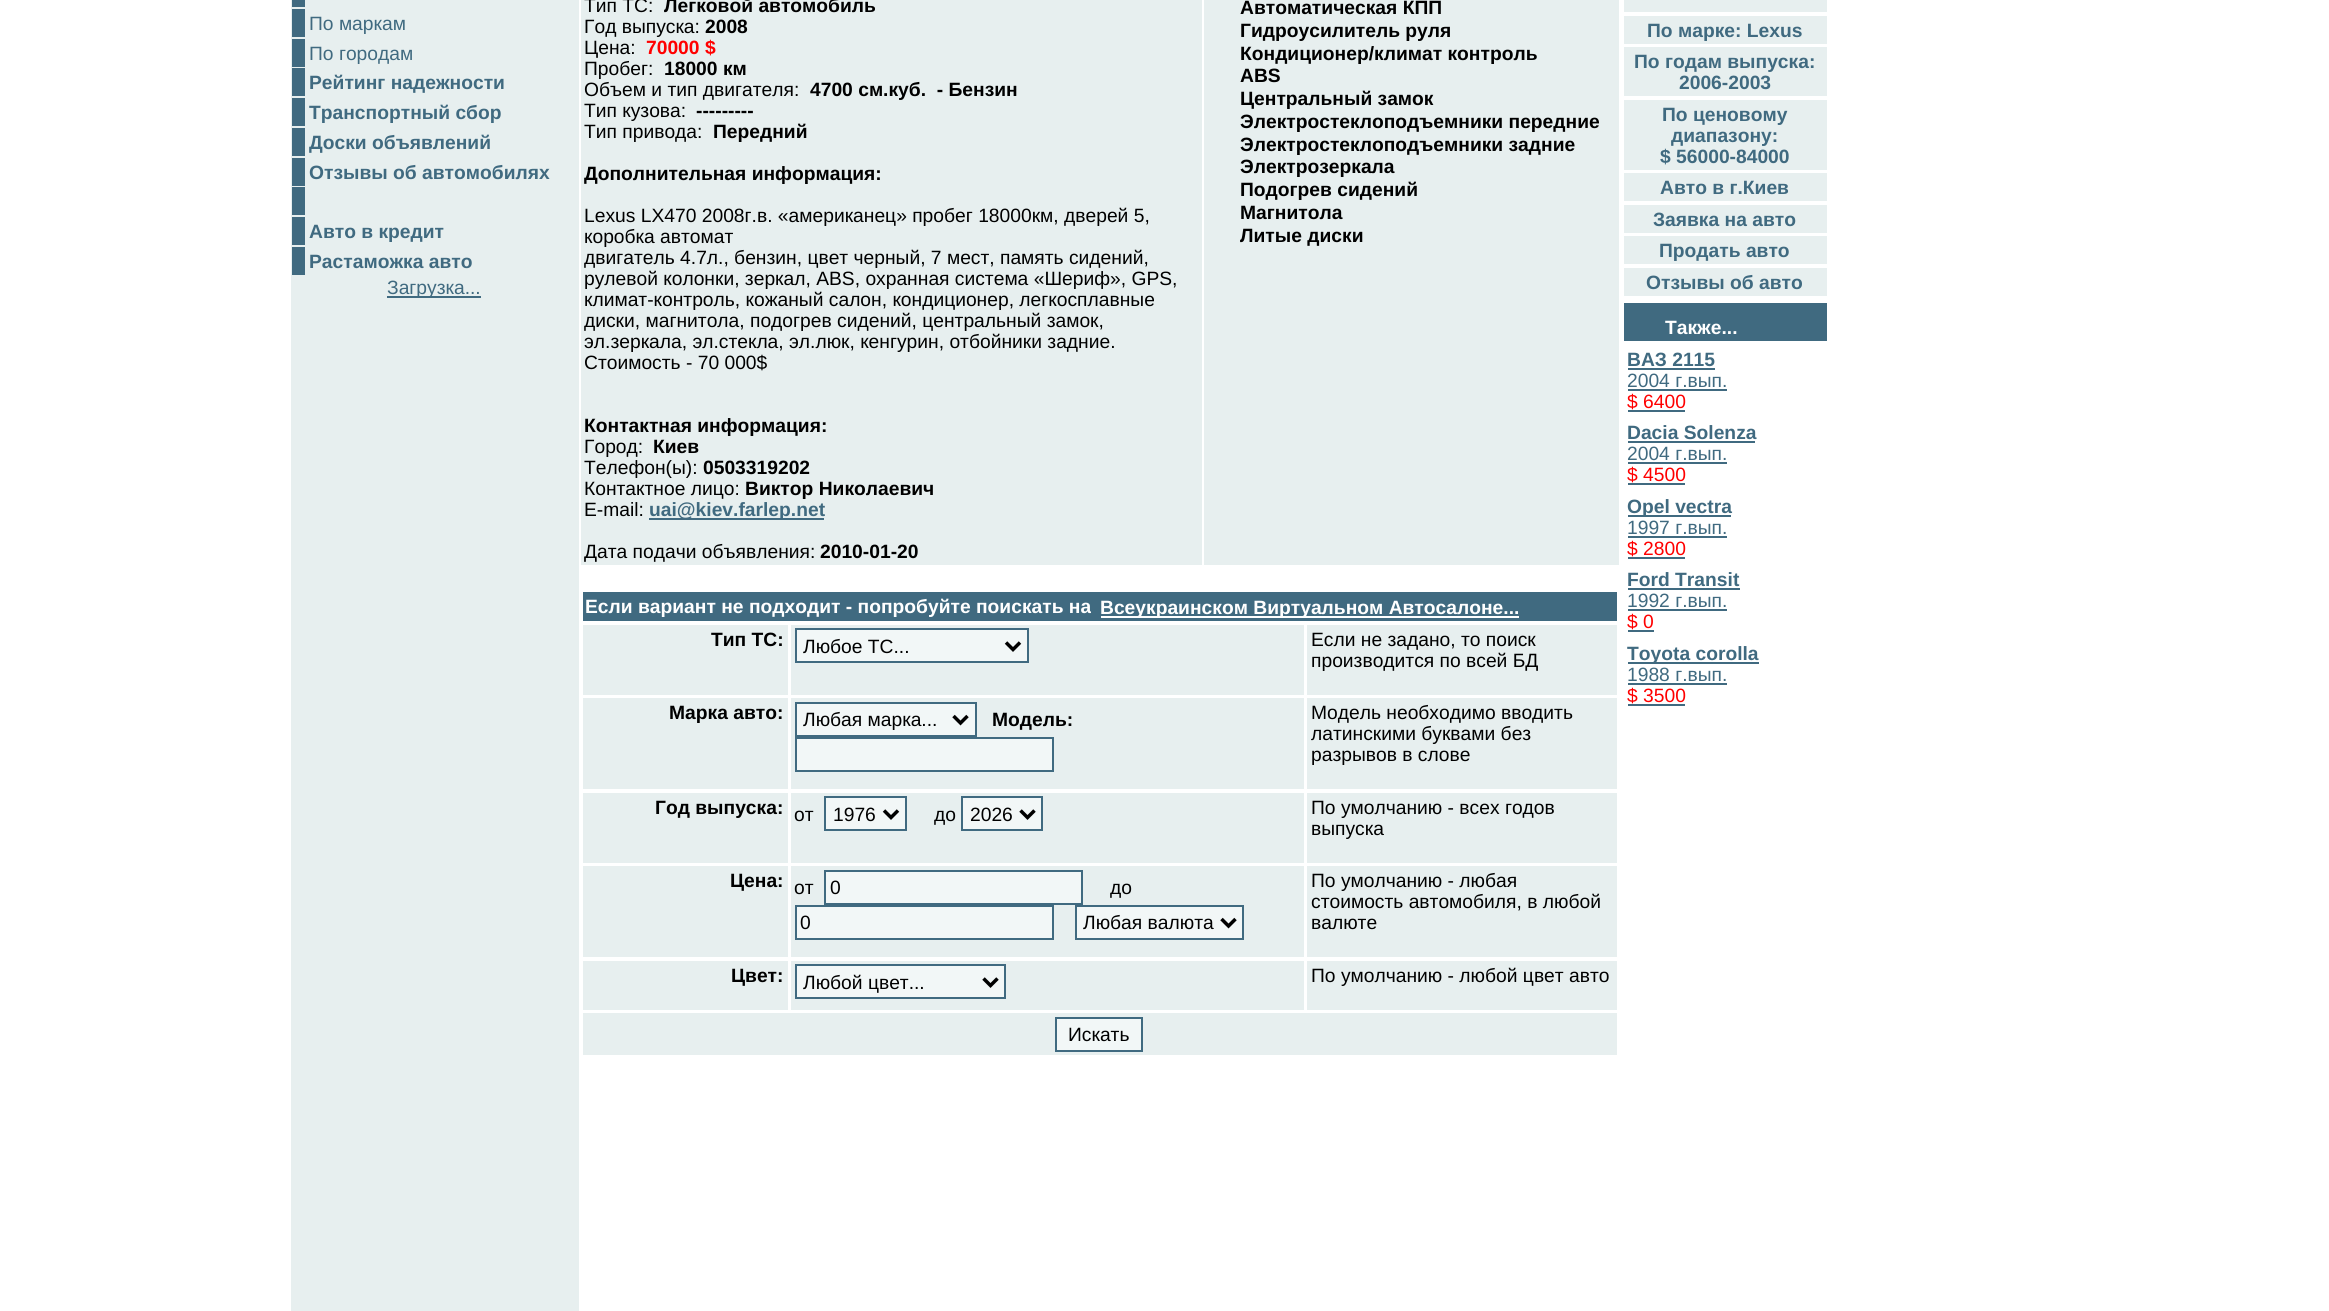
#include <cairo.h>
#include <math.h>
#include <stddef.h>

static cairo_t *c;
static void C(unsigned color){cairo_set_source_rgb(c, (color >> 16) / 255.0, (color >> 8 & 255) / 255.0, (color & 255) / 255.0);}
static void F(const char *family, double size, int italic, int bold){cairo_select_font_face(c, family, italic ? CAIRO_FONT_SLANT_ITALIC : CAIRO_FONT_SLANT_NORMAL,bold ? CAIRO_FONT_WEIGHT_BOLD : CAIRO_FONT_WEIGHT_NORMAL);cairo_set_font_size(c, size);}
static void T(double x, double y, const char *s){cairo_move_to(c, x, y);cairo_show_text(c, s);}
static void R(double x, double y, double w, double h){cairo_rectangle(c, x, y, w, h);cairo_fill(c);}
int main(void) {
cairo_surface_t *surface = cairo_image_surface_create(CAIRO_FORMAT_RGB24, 2329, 1311);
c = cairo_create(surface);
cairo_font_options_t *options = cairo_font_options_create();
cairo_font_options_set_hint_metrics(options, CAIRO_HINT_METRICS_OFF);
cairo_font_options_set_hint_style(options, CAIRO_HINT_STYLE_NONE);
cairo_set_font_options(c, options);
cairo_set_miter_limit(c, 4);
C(0xffffff);
cairo_paint(c);
C(0xe7efef);
R(291,0,288,1311);
C(0x406a80);
R(292,0,13,7);
R(292,9,13,28);
F("Liberation Sans",19.25,0,0);
T(309,30,"По маркам");
R(292,39,13,28);
T(309,60,"По городам");
R(292,68,13,28);
F("Liberation Sans",19.25,0,1);
T(309,89,"Рейтинг надежности");
R(292,98,13,28);
T(309,119,"Транспортный сбор");
R(292,128,13,28);
T(309,149,"Доски объявлений");
R(292,158,13,28);
T(309,179,"Отзывы об автомобилях");
R(292,187,13,28);
R(292,217,13,28);
T(309,238,"Авто в кредит");
R(292,247,13,28);
T(309,268,"Растаможка авто");
R(387,296,94,2);
F("Liberation Sans",19.25,0,0);
T(387,294,"Загрузка...");
C(0xe7efef);
R(581,0,621,565);
C(0x000000);
T(584,12,"Тип ТС:");
F("Liberation Sans",19.25,0,1);
T(664,12,"Легковой автомобиль");
F("Liberation Sans",19.25,0,0);
T(584,33,"Год выпуска:");
F("Liberation Sans",19.25,0,1);
T(705,33,"2008");
F("Liberation Sans",19.25,0,0);
T(584,54,"Цена:");
F("Liberation Sans",19.25,0,1);
C(0xff0000);
T(646,54,"70000 $");
F("Liberation Sans",19.25,0,0);
C(0x000000);
T(584,75,"Пробег:");
F("Liberation Sans",19.25,0,1);
T(664,75,"18000 км");
F("Liberation Sans",19.25,0,0);
T(584,96,"Объем и тип двигателя:");
F("Liberation Sans",19.25,0,1);
T(810,96,"4700 см.куб.  - Бензин");
F("Liberation Sans",19.25,0,0);
T(584,117,"Тип кузова:");
F("Liberation Sans",19.25,0,1);
T(696,117,"---------");
F("Liberation Sans",19.25,0,0);
T(584,138,"Тип привода:");
F("Liberation Sans",19.25,0,1);
T(713,138,"Передний");
T(584,180,"Дополнительная информация:");
F("Liberation Sans",19.25,0,0);
T(584,222,"Lexus LX470 2008г.в. «американец» пробег 18000км, дверей 5,");
T(584,243,"коробка автомат");
T(584,264,"двигатель 4.7л., бензин, цвет черный, 7 мест, память сидений,");
T(584,285,"рулевой колонки, зеркал, ABS, охранная система «Шериф», GPS,");
T(584,306,"климат-контроль, кожаный салон, кондиционер, легкосплавные");
T(584,327,"диски, магнитола, подогрев сидений, центральный замок,");
T(584,348,"эл.зеркала, эл.стекла, эл.люк, кенгурин, отбойники задние.");
T(584,369,"Стоимость - 70 000$");
F("Liberation Sans",19.25,0,1);
T(584,432,"Контактная информация:");
F("Liberation Sans",19.25,0,0);
T(584,453,"Город:");
F("Liberation Sans",19.25,0,1);
T(653,453,"Киев");
F("Liberation Sans",19.25,0,0);
T(584,474,"Телефон(ы):");
F("Liberation Sans",19.25,0,1);
T(703,474,"0503319202");
F("Liberation Sans",19.25,0,0);
T(584,495,"Контактное лицо:");
F("Liberation Sans",19.25,0,1);
T(745,495,"Виктор Николаевич");
F("Liberation Sans",19.25,0,0);
T(584,516,"E-mail:");
C(0x406a80);
R(649,518,175,2);
F("Liberation Sans",19.25,0,1);
T(649,516,"uai@kiev.farlep.net");
F("Liberation Sans",19.25,0,0);
C(0x000000);
T(584,558,"Дата подачи объявления:");
F("Liberation Sans",19.25,0,1);
T(820,558,"2010-01-20");
C(0xe7efef);
R(1204,0,415,565);
C(0x000000);
T(1240,14,"Автоматическая КПП");
T(1240,37,"Гидроусилитель руля");
T(1240,60,"Кондиционер/климат контроль");
T(1240,82,"ABS");
T(1240,105,"Центральный замок");
T(1240,128,"Электростеклоподъемники передние");
T(1240,151,"Электростеклоподъемники задние");
T(1240,173,"Электрозеркала");
T(1240,196,"Подогрев сидений");
T(1240,219,"Магнитола");
T(1240,242,"Литые диски");
C(0x406a80);
R(583,592,1034,29);
C(0xffffff);
T(585,613,"Если вариант не подходит - попробуйте поискать на");
R(1101,616,418,2);
T(1100,614,"Всеукраинском Виртуальном Автосалоне...");
C(0xe7efef);
R(583,625,205,70);
C(0x000000);
T(711,646,"Тип ТС:");
C(0xe7efef);
R(791,625,513,70);
C(0xf2f7f7);
cairo_rectangle(c,796,629,232,33);
cairo_fill_preserve(c);
C(0x406a80);
cairo_stroke(c);
cairo_new_path(c);
cairo_move_to(c,1006,642.5);
cairo_line_to(c,1013,649.5);
cairo_line_to(c,1020,642.5);
C(0x000000);
cairo_set_line_width(c,3.5);
cairo_stroke(c);
F("Liberation Sans",19.25,0,0);
T(803,653,"Любое ТС...");
C(0xe7efef);
R(1307,625,310,70);
C(0x000000);
T(1311,646,"Если не задано, то поиск");
T(1311,667,"производится по всей БД");
C(0xe7efef);
R(583,698,205,91);
F("Liberation Sans",19.25,0,1);
C(0x000000);
T(669,719,"Марка авто:");
C(0xe7efef);
R(791,698,513,91);
C(0xf2f7f7);
cairo_rectangle(c,796,703,180,33);
cairo_fill_preserve(c);
C(0x406a80);
cairo_set_line_width(c,2);
cairo_stroke(c);
cairo_new_path(c);
cairo_move_to(c,953.5,716);
cairo_line_to(c,960.5,723);
cairo_line_to(c,967.5,716);
C(0x000000);
cairo_set_line_width(c,3.5);
cairo_stroke(c);
F("Liberation Sans",19.25,0,0);
T(803,726,"Любая марка...");
F("Liberation Sans",19.25,0,1);
T(992,726,"Модель:");
C(0xf2f7f7);
cairo_rectangle(c,796,738,257,33);
cairo_fill_preserve(c);
C(0x406a80);
cairo_set_line_width(c,2);
cairo_stroke(c);
C(0xe7efef);
R(1307,698,310,91);
F("Liberation Sans",19.25,0,0);
C(0x000000);
T(1311,719,"Модель необходимо вводить");
T(1311,740,"латинскими буквами без");
T(1311,761,"разрывов в слове");
C(0xe7efef);
R(583,793,205,70);
F("Liberation Sans",19.25,0,1);
C(0x000000);
T(655,814,"Год выпуска:");
C(0xe7efef);
R(791,793,513,70);
F("Liberation Sans",19.25,0,0);
C(0x000000);
T(794,821,"от");
C(0xf2f7f7);
cairo_rectangle(c,825,797,81,33);
cairo_fill_preserve(c);
C(0x406a80);
cairo_stroke(c);
cairo_new_path(c);
cairo_move_to(c,884,810.5);
cairo_line_to(c,891,817.5);
cairo_line_to(c,898,810.5);
C(0x000000);
cairo_set_line_width(c,3.5);
cairo_stroke(c);
T(833,821,"1976");
T(934,821,"до");
C(0xf2f7f7);
cairo_rectangle(c,962,797,80,33);
cairo_fill_preserve(c);
C(0x406a80);
cairo_set_line_width(c,2);
cairo_stroke(c);
cairo_new_path(c);
cairo_move_to(c,1020.5,810.5);
cairo_line_to(c,1027.5,817.5);
cairo_line_to(c,1034.5,810.5);
C(0x000000);
cairo_set_line_width(c,3.5);
cairo_stroke(c);
T(970,821,"2026");
C(0xe7efef);
R(1307,793,310,70);
C(0x000000);
T(1311,814,"По умолчанию - всех годов");
T(1311,835,"выпуска");
C(0xe7efef);
R(583,866,205,91);
F("Liberation Sans",19.25,0,1);
C(0x000000);
T(730,887,"Цена:");
C(0xe7efef);
R(791,866,513,91);
F("Liberation Sans",19.25,0,0);
C(0x000000);
T(794,894,"от");
C(0xf2f7f7);
cairo_rectangle(c,825,871,257,33);
cairo_fill_preserve(c);
C(0x406a80);
cairo_set_line_width(c,2);
cairo_stroke(c);
C(0x000000);
T(830,894,"0");
T(1110,894,"до");
C(0xf2f7f7);
cairo_rectangle(c,796,906,257,33);
cairo_fill_preserve(c);
C(0x406a80);
cairo_stroke(c);
C(0x000000);
T(800,929,"0");
C(0xf2f7f7);
cairo_rectangle(c,1076,906,167,33);
cairo_fill_preserve(c);
C(0x406a80);
cairo_stroke(c);
cairo_new_path(c);
cairo_move_to(c,1221.5,919);
cairo_line_to(c,1228.5,926);
cairo_line_to(c,1235.5,919);
C(0x000000);
cairo_set_line_width(c,3.5);
cairo_stroke(c);
T(1083,929,"Любая валюта");
C(0xe7efef);
R(1307,866,310,91);
C(0x000000);
T(1311,887,"По умолчанию - любая");
T(1311,908,"стоимость автомобиля, в любой");
T(1311,929,"валюте");
C(0xe7efef);
R(583,961,205,49);
F("Liberation Sans",19.25,0,1);
C(0x000000);
T(731,982,"Цвет:");
C(0xe7efef);
R(791,961,513,49);
C(0xf2f7f7);
cairo_rectangle(c,796,965,209,33);
cairo_fill_preserve(c);
C(0x406a80);
cairo_set_line_width(c,2);
cairo_stroke(c);
cairo_new_path(c);
cairo_move_to(c,983.5,978.5);
cairo_line_to(c,990.5,985.5);
cairo_line_to(c,997.5,978.5);
C(0x000000);
cairo_set_line_width(c,3.5);
cairo_stroke(c);
F("Liberation Sans",19.25,0,0);
T(803,989,"Любой цвет...");
C(0xe7efef);
R(1307,961,310,49);
C(0x000000);
T(1311,982,"По умолчанию - любой цвет авто");
C(0xe7efef);
R(583,1013,1034,42);
C(0xf2f7f7);
cairo_rectangle(c,1056,1018,86,33);
cairo_fill_preserve(c);
C(0x406a80);
cairo_set_line_width(c,2);
cairo_stroke(c);
C(0x000000);
T(1068,1041,"Искать");
C(0xe7efef);
R(1624,0,203,12);
R(1624,16,203,28);
F("Liberation Sans",19.25,0,1);
C(0x406a80);
T(1647,37,"По марке: Lexus");
C(0xe7efef);
R(1624,47,203,49);
C(0x406a80);
T(1634,68,"По годам выпуска:");
T(1679,89,"2006-2003");
C(0xe7efef);
R(1624,100,203,70);
C(0x406a80);
T(1662,121,"По ценовому");
T(1671,142,"диапазону:");
T(1660,163,"$ 56000-84000");
C(0xe7efef);
R(1624,173,203,28);
C(0x406a80);
T(1660,194,"Авто в г.Киев");
C(0xe7efef);
R(1624,205,203,28);
C(0x406a80);
T(1653,226,"Заявка на авто");
C(0xe7efef);
R(1624,236,203,28);
C(0x406a80);
T(1659,257,"Продать авто");
C(0xe7efef);
R(1624,268,203,28);
C(0x406a80);
T(1646,289,"Отзывы об авто");
R(1624,303,203,38);
C(0xffffff);
T(1665,334,"Также...");
C(0x406a80);
T(1627,366,"ВАЗ 2115");
R(1628,368,87,2);
F("Liberation Sans",19.25,0,0);
T(1627,387,"2004 г.вып.");
R(1628,389,99,2);
C(0xff0000);
T(1627,408,"$ 6400");
C(0x406a80);
R(1628,410,57,2);
F("Liberation Sans",19.25,0,1);
T(1627,439,"Dacia Solenza");
R(1628,441,127,2);
F("Liberation Sans",19.25,0,0);
T(1627,460,"2004 г.вып.");
R(1628,462,99,2);
C(0xff0000);
T(1627,481,"$ 4500");
C(0x406a80);
R(1628,483,57,2);
R(1628,515,103,2);
F("Liberation Sans",19.25,0,1);
T(1627,513,"Opel vectra");
F("Liberation Sans",19.25,0,0);
T(1627,534,"1997 г.вып.");
R(1628,536,99,2);
C(0xff0000);
T(1627,555,"$ 2800");
C(0x406a80);
R(1628,557,57,2);
F("Liberation Sans",19.25,0,1);
T(1627,586,"Ford Transit");
R(1628,588,112,2);
F("Liberation Sans",19.25,0,0);
T(1627,607,"1992 г.вып.");
R(1628,609,99,2);
C(0xff0000);
T(1627,628,"$ 0");
C(0x406a80);
R(1628,630,26,2);
R(1628,662,131,2);
F("Liberation Sans",19.25,0,1);
T(1627,660,"Toyota corolla");
F("Liberation Sans",19.25,0,0);
T(1627,681,"1988 г.вып.");
R(1628,683,99,2);
C(0xff0000);
T(1627,702,"$ 3500");
C(0x406a80);
R(1628,704,57,2);
cairo_surface_write_to_png(surface, "o.png");
cairo_font_options_destroy(options);
cairo_destroy(c);
cairo_surface_destroy(surface);
return 0;
}
